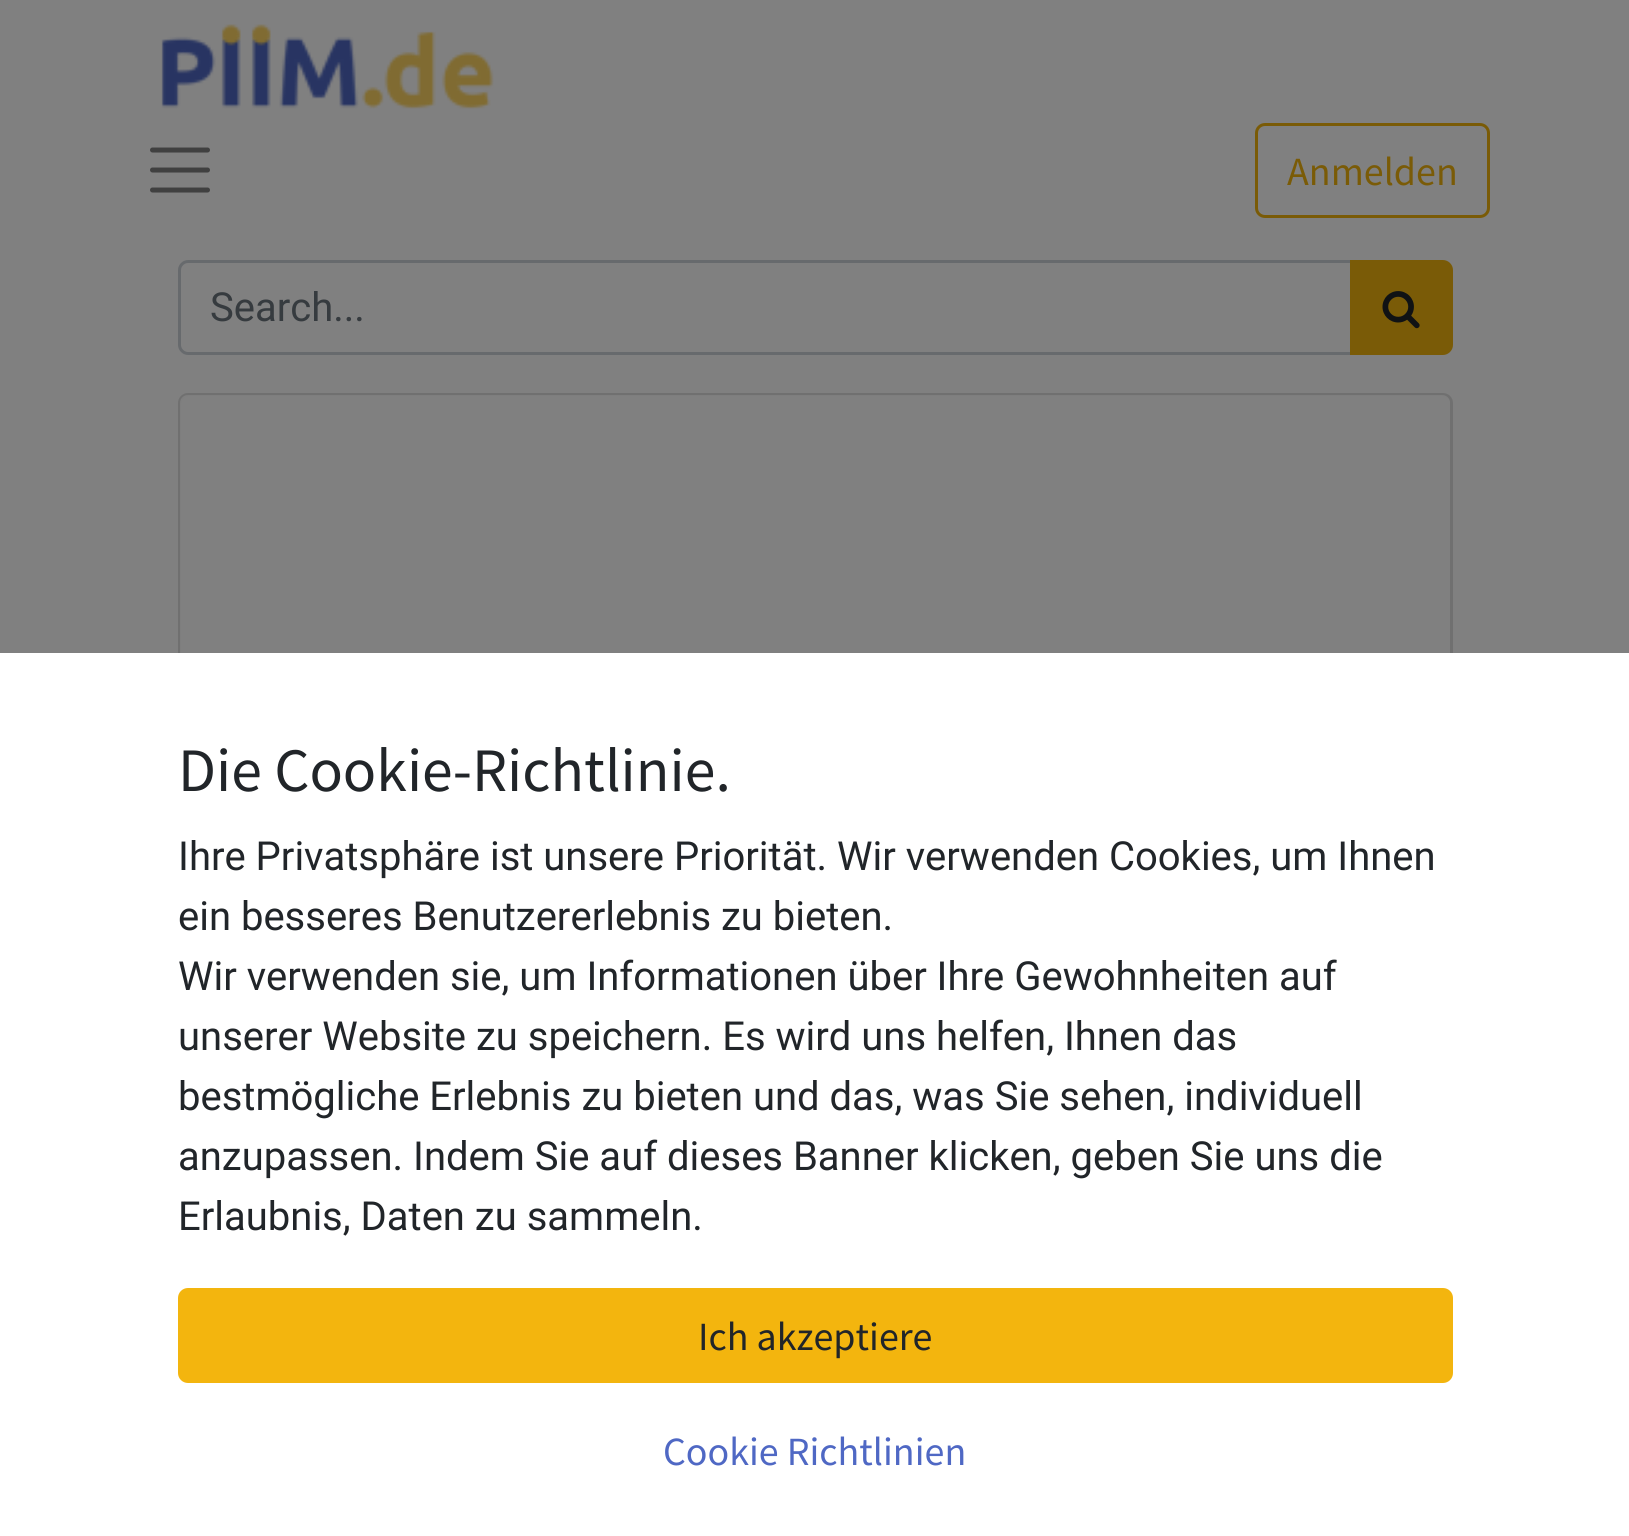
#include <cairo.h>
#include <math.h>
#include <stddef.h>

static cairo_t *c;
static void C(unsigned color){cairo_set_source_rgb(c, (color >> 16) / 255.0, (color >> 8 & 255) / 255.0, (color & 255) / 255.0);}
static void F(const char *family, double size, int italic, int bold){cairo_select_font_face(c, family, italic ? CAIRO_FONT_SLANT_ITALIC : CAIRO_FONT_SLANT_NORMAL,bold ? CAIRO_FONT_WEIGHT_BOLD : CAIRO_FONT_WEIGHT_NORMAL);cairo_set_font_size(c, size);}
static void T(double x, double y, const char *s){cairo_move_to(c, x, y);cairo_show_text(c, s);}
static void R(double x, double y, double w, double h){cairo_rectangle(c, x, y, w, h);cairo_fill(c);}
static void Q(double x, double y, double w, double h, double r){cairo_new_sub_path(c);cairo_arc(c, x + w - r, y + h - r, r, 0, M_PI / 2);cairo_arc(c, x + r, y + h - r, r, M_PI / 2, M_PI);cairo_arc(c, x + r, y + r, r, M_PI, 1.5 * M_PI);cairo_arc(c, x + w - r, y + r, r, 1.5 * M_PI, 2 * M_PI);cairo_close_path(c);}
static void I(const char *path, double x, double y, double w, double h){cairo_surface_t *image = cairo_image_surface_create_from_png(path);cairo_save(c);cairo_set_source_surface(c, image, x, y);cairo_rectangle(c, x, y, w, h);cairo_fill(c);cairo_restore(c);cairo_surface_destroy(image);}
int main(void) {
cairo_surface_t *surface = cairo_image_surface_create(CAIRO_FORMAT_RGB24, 1629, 1536);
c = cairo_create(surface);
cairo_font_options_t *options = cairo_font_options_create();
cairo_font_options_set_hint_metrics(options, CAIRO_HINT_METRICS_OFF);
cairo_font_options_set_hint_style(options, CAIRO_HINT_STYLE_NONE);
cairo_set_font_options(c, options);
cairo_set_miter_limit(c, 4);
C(0x808080);
cairo_paint(c);
I("1.png",161,24,333,85);
cairo_new_path(c);
cairo_move_to(c,152.5,150);
cairo_line_to(c,207.5,150);
cairo_move_to(c,152.5,170);
cairo_line_to(c,207.5,170);
cairo_move_to(c,152.5,190);
cairo_line_to(c,207.5,190);
C(0x404040);
cairo_set_line_width(c,5);
cairo_set_line_cap(c,CAIRO_LINE_CAP_ROUND);
cairo_stroke(c);
Q(1256.5,124.5,232,92,8.5);
C(0x7a5b07);
cairo_set_line_width(c,3);
cairo_set_line_cap(c,CAIRO_LINE_CAP_BUTT);
cairo_stroke(c);
F("Source Sans Pro",40,0,0);
T(1287,185,"Anmelden");
cairo_new_path(c);
cairo_move_to(c,188,261.5);
cairo_line_to(c,1351.5,261.5);
cairo_line_to(c,1351.5,353.5);
cairo_line_to(c,188,353.5);
cairo_curve_to(c,183.5,353.5,179.5,349.5,179.5,345);
cairo_line_to(c,179.5,270);
cairo_curve_to(c,179.5,265.5,183.5,261.5,188,261.5);
cairo_close_path(c);
C(0x676a6d);
cairo_stroke(c);
F("Roboto",40,0,0);
C(0x363b3f);
T(210,321,"Search...");
C(0x7a5b07);
cairo_new_path(c);
cairo_move_to(c,1351.5,261.5);
cairo_line_to(c,1443,261.5);
cairo_curve_to(c,1447.5,261.5,1451.5,265.5,1451.5,270);
cairo_line_to(c,1451.5,345);
cairo_curve_to(c,1451.5,349.5,1447.5,353.5,1443,353.5);
cairo_line_to(c,1351.5,353.5);
cairo_close_path(c);
cairo_fill_preserve(c);
cairo_stroke(c);
I("2.png",1382,291,38,38);
Q(179.5,394.5,1272,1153,8.5);
C(0x707070);
cairo_stroke(c);
cairo_set_source_rgba(c,0.502,0.502,0.502,0.9);
cairo_new_path(c);
cairo_move_to(c,188,395);
cairo_line_to(c,1442,395);
cairo_curve_to(c,1446.5,395,1450,398.5,1450,403);
cairo_line_to(c,1450,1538);
cairo_line_to(c,180,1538);
cairo_line_to(c,180,403);
cairo_curve_to(c,180,398.5,183.5,395,188,395);
cairo_close_path(c);
cairo_fill(c);
C(0xffffff);
R(0,653,1629,883);
F("Source Sans Pro",61.75,0,0);
C(0x212529);
T(178,791,"Die Cookie-Richtlinie.");
F("Roboto",40,0,0);
T(178,870,"Ihre Privatsphäre ist unsere Priorität. Wir verwenden Cookies, um Ihnen");
T(178,930,"ein besseres Benutzererlebnis zu bieten.");
T(178,990,"Wir verwenden sie, um Informationen über Ihre Gewohnheiten auf");
T(178,1050,"unserer Website zu speichern. Es wird uns helfen, Ihnen das");
T(178,1110,"bestmögliche Erlebnis zu bieten und das, was Sie sehen, individuell");
T(178,1170,"anzupassen. Indem Sie auf dieses Banner klicken, geben Sie uns die");
T(178,1230,"Erlaubnis, Daten zu sammeln.");
C(0xf3b50e);
Q(179.5,1289.5,1272,92,8.5);
cairo_fill_preserve(c);
cairo_stroke(c);
F("Source Sans Pro",40,0,0);
C(0x212529);
T(698,1350,"Ich akzeptiere");
C(0x4f68c4);
T(663,1465,"Cookie Richtlinien");
cairo_surface_write_to_png(surface, "o.png");
cairo_font_options_destroy(options);
cairo_destroy(c);
cairo_surface_destroy(surface);
return 0;
}
